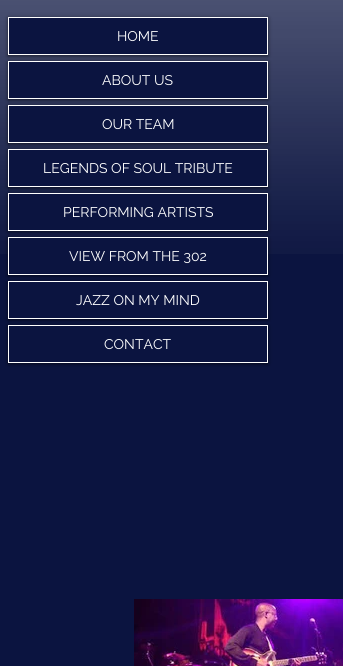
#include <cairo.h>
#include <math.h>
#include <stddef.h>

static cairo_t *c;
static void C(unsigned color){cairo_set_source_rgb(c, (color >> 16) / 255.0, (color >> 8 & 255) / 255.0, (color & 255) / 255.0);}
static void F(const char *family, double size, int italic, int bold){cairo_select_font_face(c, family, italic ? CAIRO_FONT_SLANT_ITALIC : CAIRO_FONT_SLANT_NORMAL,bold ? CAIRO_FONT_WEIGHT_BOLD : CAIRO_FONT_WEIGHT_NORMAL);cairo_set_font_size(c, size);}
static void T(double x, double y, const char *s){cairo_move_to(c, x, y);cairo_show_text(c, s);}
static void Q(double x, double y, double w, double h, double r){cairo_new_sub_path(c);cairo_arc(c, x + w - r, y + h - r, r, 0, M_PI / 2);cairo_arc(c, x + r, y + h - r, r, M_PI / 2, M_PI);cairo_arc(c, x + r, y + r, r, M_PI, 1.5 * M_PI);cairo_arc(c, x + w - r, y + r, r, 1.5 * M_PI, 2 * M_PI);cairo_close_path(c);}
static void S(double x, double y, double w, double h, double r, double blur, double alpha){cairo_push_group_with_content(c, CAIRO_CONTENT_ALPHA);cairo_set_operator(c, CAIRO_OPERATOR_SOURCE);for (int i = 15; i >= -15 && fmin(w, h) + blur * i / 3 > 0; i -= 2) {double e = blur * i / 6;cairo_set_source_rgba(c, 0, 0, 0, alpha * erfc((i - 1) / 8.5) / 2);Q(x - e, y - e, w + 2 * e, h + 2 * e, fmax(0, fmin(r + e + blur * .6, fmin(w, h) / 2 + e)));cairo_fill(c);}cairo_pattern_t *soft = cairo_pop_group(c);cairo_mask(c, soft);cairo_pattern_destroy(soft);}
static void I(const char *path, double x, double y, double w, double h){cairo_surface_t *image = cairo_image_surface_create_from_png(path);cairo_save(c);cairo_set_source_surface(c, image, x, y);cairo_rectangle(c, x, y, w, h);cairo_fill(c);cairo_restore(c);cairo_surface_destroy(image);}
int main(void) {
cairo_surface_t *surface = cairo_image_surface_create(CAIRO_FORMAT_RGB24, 343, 666);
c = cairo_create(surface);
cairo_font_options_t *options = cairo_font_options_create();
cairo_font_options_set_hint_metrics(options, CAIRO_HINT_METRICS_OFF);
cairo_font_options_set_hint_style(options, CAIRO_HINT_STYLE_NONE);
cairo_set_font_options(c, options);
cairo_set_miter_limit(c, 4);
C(0x0b1440);
cairo_paint(c);
I("1.png",0,0,343,254);
C(0x000000);
S(8,18,260,38,0,2,.6);
C(0x0b1440);
cairo_rectangle(c,8.5,17.5,259,37);
cairo_fill_preserve(c);
C(0xffffff);
cairo_set_line_width(c,1);
cairo_stroke(c);
F("Raleway",14,0,0);
T(117,41,"HOME");
C(0x000000);
S(8,62,260,38,0,2,.6);
C(0x0b1440);
cairo_rectangle(c,8.5,61.5,259,37);
cairo_fill_preserve(c);
C(0xffffff);
cairo_stroke(c);
T(102,85,"ABOUT US");
C(0x000000);
S(8,106,260,38,0,2,.6);
C(0x0b1440);
cairo_rectangle(c,8.5,105.5,259,37);
cairo_fill_preserve(c);
C(0xffffff);
cairo_stroke(c);
T(102,129,"OUR TEAM");
C(0x000000);
S(8,150,260,38,0,2,.6);
C(0x0b1440);
cairo_rectangle(c,8.5,149.5,259,37);
cairo_fill_preserve(c);
C(0xffffff);
cairo_stroke(c);
T(43,173,"LEGENDS OF SOUL TRIBUTE");
C(0x000000);
S(8,194,260,38,0,2,.6);
C(0x0b1440);
cairo_rectangle(c,8.5,193.5,259,37);
cairo_fill_preserve(c);
C(0xffffff);
cairo_stroke(c);
T(63,217,"PERFORMING ARTISTS");
C(0x000000);
S(8,238,260,38,0,2,.6);
C(0x0b1440);
cairo_rectangle(c,8.5,237.5,259,37);
cairo_fill_preserve(c);
C(0xffffff);
cairo_stroke(c);
T(69,261,"VIEW FROM THE 302");
cairo_save(c);
cairo_set_fill_rule(c,CAIRO_FILL_RULE_EVEN_ODD);
cairo_new_path(c);
cairo_move_to(c,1,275);
cairo_line_to(c,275,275);
cairo_line_to(c,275,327);
cairo_line_to(c,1,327);
cairo_close_path(c);
cairo_move_to(c,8,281);
cairo_line_to(c,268,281);
cairo_line_to(c,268,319);
cairo_line_to(c,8,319);
cairo_close_path(c);
cairo_clip(c);
C(0x000000);
S(8,282,260,38,0,2,.6);
cairo_restore(c);
cairo_rectangle(c,8.5,281.5,259,37);
cairo_stroke(c);
T(76,305,"JAZZ ON MY MIND");
cairo_save(c);
cairo_set_fill_rule(c,CAIRO_FILL_RULE_EVEN_ODD);
cairo_new_path(c);
cairo_move_to(c,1,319);
cairo_line_to(c,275,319);
cairo_line_to(c,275,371);
cairo_line_to(c,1,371);
cairo_close_path(c);
cairo_move_to(c,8,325);
cairo_line_to(c,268,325);
cairo_line_to(c,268,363);
cairo_line_to(c,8,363);
cairo_close_path(c);
cairo_clip(c);
C(0x000000);
S(8,326,260,38,0,2,.6);
cairo_restore(c);
cairo_rectangle(c,8.5,325.5,259,37);
cairo_stroke(c);
T(104,349,"CONTACT");
I("2.png",134,599,209,67);
cairo_surface_write_to_png(surface, "o.png");
cairo_font_options_destroy(options);
cairo_destroy(c);
cairo_surface_destroy(surface);
return 0;
}
